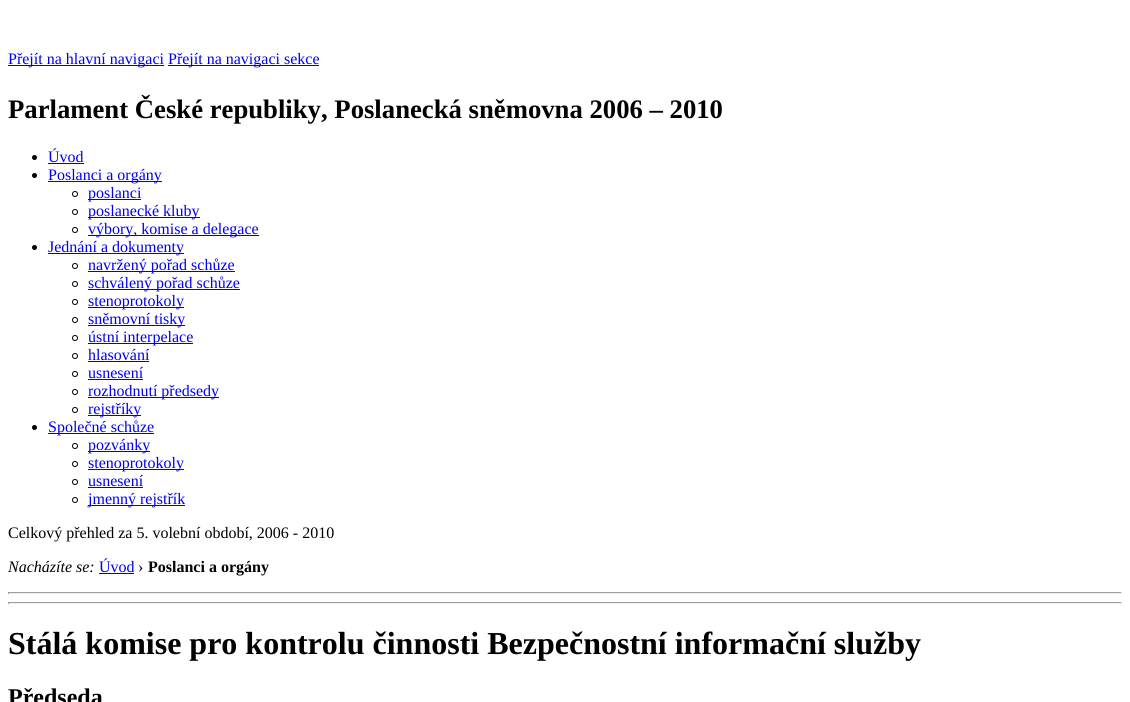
#include <cairo.h>
#include <math.h>
#include <stddef.h>

static cairo_t *c;
static void C(unsigned color){cairo_set_source_rgb(c, (color >> 16) / 255.0, (color >> 8 & 255) / 255.0, (color & 255) / 255.0);}
static void F(const char *family, double size, int italic, int bold){cairo_select_font_face(c, family, italic ? CAIRO_FONT_SLANT_ITALIC : CAIRO_FONT_SLANT_NORMAL,bold ? CAIRO_FONT_WEIGHT_BOLD : CAIRO_FONT_WEIGHT_NORMAL);cairo_set_font_size(c, size);}
static void T(double x, double y, const char *s){cairo_move_to(c, x, y);cairo_show_text(c, s);}
static void R(double x, double y, double w, double h){cairo_rectangle(c, x, y, w, h);cairo_fill(c);}
int main(void) {
cairo_surface_t *surface = cairo_image_surface_create(CAIRO_FORMAT_RGB24, 1130, 702);
c = cairo_create(surface);
cairo_font_options_t *options = cairo_font_options_create();
cairo_font_options_set_hint_metrics(options, CAIRO_HINT_METRICS_OFF);
cairo_font_options_set_hint_style(options, CAIRO_HINT_STYLE_NONE);
cairo_set_font_options(c, options);
cairo_set_miter_limit(c, 4);
C(0xffffff);
cairo_paint(c);
C(0x0000ee);
R(8,65,156,1);
F("Liberation Serif",16,0,0);
T(8,64,"Přejít na hlavní navigaci");
R(168,65,151,1);
T(168,64,"Přejít na navigaci sekce");
F("Liberation Serif",26.7,0,1);
C(0x000000);
T(8,118,"Parlament České republiky, Poslanecká sněmovna 2006 – 2010");
cairo_new_path(c);
cairo_arc(c,34.5,157.5,2.5,0,2 * M_PI);
cairo_fill(c);
F("Liberation Serif",16,0,0);
C(0x0000ee);
T(48,162,"Úvod");
R(48,163,36,1);
C(0x000000);
cairo_new_path(c);
cairo_arc(c,34.5,175.5,2.5,0,2 * M_PI);
cairo_fill(c);
C(0x0000ee);
R(48,181,114,1);
T(48,180,"Poslanci a orgány");
cairo_new_path(c);
cairo_arc(c,75,194,2.5,0,2 * M_PI);
C(0x000000);
cairo_set_line_width(c,1);
cairo_stroke(c);
C(0x0000ee);
R(88,199,53,1);
T(88,198,"poslanci");
cairo_new_path(c);
cairo_arc(c,75,212,2.5,0,2 * M_PI);
C(0x000000);
cairo_stroke(c);
C(0x0000ee);
R(88,217,112,1);
T(88,216,"poslanecké kluby");
cairo_new_path(c);
cairo_arc(c,75,230,2.5,0,2 * M_PI);
C(0x000000);
cairo_stroke(c);
C(0x0000ee);
R(88,235,171,1);
T(88,234,"výbory, komise a delegace");
C(0x000000);
cairo_new_path(c);
cairo_arc(c,34.5,247.5,2.5,0,2 * M_PI);
cairo_fill(c);
C(0x0000ee);
R(48,253,136,1);
T(48,252,"Jednání a dokumenty");
cairo_new_path(c);
cairo_arc(c,75,266,2.5,0,2 * M_PI);
C(0x000000);
cairo_stroke(c);
C(0x0000ee);
R(88,271,147,1);
T(88,270,"navržený pořad schůze");
cairo_new_path(c);
cairo_arc(c,75,284,2.5,0,2 * M_PI);
C(0x000000);
cairo_stroke(c);
C(0x0000ee);
R(88,289,152,1);
T(88,288,"schválený pořad schůze");
cairo_new_path(c);
cairo_arc(c,75,302,2.5,0,2 * M_PI);
C(0x000000);
cairo_stroke(c);
C(0x0000ee);
R(88,307,96,1);
T(88,306,"stenoprotokoly");
cairo_new_path(c);
cairo_arc(c,75,320,2.5,0,2 * M_PI);
C(0x000000);
cairo_stroke(c);
C(0x0000ee);
R(88,325,97,1);
T(88,324,"sněmovní tisky");
cairo_new_path(c);
cairo_arc(c,75,338,2.5,0,2 * M_PI);
C(0x000000);
cairo_stroke(c);
C(0x0000ee);
R(88,343,105,1);
T(88,342,"ústní interpelace");
cairo_new_path(c);
cairo_arc(c,75,356,2.5,0,2 * M_PI);
C(0x000000);
cairo_stroke(c);
C(0x0000ee);
T(88,360,"hlasování");
R(88,361,61,1);
cairo_new_path(c);
cairo_arc(c,75,374,2.5,0,2 * M_PI);
C(0x000000);
cairo_stroke(c);
C(0x0000ee);
T(88,378,"usnesení");
R(88,379,55,1);
cairo_new_path(c);
cairo_arc(c,75,392,2.5,0,2 * M_PI);
C(0x000000);
cairo_stroke(c);
C(0x0000ee);
R(88,397,131,1);
T(88,396,"rozhodnutí předsedy");
cairo_new_path(c);
cairo_arc(c,75,410,2.5,0,2 * M_PI);
C(0x000000);
cairo_stroke(c);
C(0x0000ee);
R(88,415,53,1);
T(88,414,"rejstříky");
C(0x000000);
cairo_new_path(c);
cairo_arc(c,34.5,427.5,2.5,0,2 * M_PI);
cairo_fill(c);
C(0x0000ee);
R(48,433,106,1);
T(48,432,"Společné schůze");
cairo_new_path(c);
cairo_arc(c,75,446,2.5,0,2 * M_PI);
C(0x000000);
cairo_stroke(c);
C(0x0000ee);
R(88,451,62,1);
T(88,450,"pozvánky");
cairo_new_path(c);
cairo_arc(c,75,464,2.5,0,2 * M_PI);
C(0x000000);
cairo_stroke(c);
C(0x0000ee);
R(88,469,96,1);
T(88,468,"stenoprotokoly");
cairo_new_path(c);
cairo_arc(c,75,482,2.5,0,2 * M_PI);
C(0x000000);
cairo_stroke(c);
C(0x0000ee);
T(88,486,"usnesení");
R(88,487,55,1);
cairo_new_path(c);
cairo_arc(c,75,500,2.5,0,2 * M_PI);
C(0x000000);
cairo_stroke(c);
C(0x0000ee);
R(88,505,97,1);
T(88,504,"jmenný rejstřík");
C(0x000000);
T(8,538,"Celkový přehled za 5. volební období, 2006 - 2010");
F("Liberation Serif",16,1,0);
T(8,572,"Nacházíte se:");
F("Liberation Serif",16,0,0);
C(0x0000ee);
T(99,572,"Úvod");
R(99,573,35,1);
C(0x000000);
T(138,572,"›");
F("Liberation Serif",16,0,1);
T(148,572,"Poslanci a orgány");
C(0x9f9f9f);
R(8,592,1114,1);
C(0xeeeeee);
R(1121,592,1,2);
R(8,593,1114,1);
C(0x9f9f9f);
R(8,592,1,2);
R(8,602,1114,1);
C(0xeeeeee);
R(1121,602,1,2);
R(8,603,1114,1);
C(0x9f9f9f);
R(8,602,1,2);
F("Liberation Serif",32,0,1);
C(0x000000);
T(8,654,"Stálá komise pro kontrolu činnosti Bezpečnostní informační služby");
F("Liberation Serif",24,0,1);
T(8,705,"Předseda");
cairo_surface_write_to_png(surface, "o.png");
cairo_font_options_destroy(options);
cairo_destroy(c);
cairo_surface_destroy(surface);
return 0;
}
